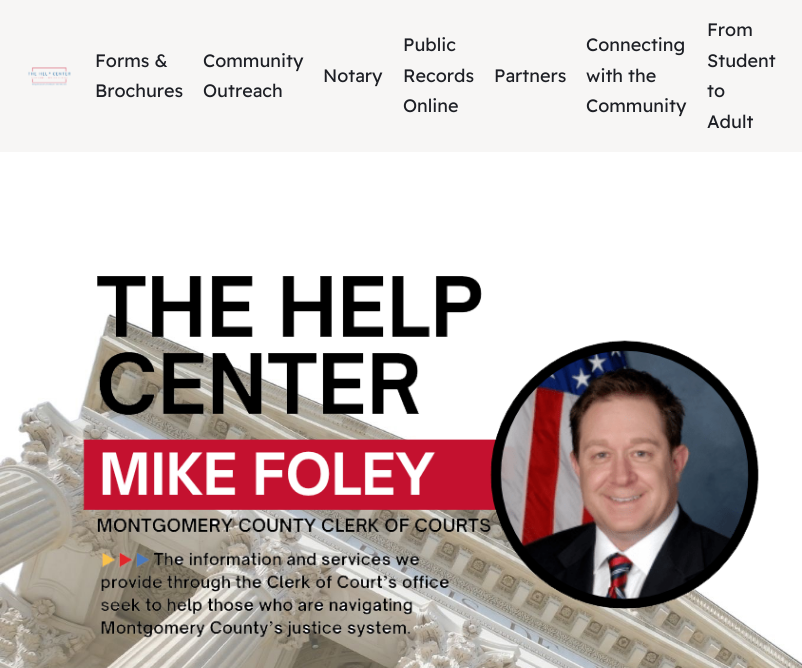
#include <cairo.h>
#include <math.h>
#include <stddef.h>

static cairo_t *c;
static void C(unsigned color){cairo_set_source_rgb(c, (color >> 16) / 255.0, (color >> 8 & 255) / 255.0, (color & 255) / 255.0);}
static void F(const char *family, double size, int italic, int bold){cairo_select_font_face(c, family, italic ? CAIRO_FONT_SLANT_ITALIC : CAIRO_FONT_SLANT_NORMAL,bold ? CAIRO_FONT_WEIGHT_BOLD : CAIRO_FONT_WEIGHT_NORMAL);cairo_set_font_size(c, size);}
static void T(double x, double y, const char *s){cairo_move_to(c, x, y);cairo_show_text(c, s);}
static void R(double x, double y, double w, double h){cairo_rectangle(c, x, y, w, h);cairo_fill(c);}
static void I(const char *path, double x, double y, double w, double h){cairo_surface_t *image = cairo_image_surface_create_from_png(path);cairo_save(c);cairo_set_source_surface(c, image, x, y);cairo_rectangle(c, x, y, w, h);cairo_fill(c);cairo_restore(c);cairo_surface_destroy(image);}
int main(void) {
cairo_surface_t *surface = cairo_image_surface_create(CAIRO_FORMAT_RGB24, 802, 668);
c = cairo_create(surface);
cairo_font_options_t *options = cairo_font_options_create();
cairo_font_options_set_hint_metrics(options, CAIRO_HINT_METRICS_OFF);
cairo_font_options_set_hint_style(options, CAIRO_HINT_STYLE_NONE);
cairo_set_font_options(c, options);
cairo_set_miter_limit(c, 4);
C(0xffffff);
cairo_paint(c);
C(0xf7f6f5);
R(0,0,802,152);
I("1.png",28,67,43,19);
F("Readex Pro",18,0,0);
C(0x1d1f25);
T(95,67,"Forms &");
T(95,97,"Brochures");
T(203,67,"Community");
T(203,97,"Outreach");
T(323,82,"Notary");
T(403,51,"Public");
T(403,82,"Records");
T(403,112,"Online");
T(494,82,"Partners");
T(586,51,"Connecting");
T(586,82,"with the");
T(586,112,"Community");
T(707,36,"From");
T(707,67,"Student");
T(707,97,"to");
T(707,128,"Adult");
I("2.png",0,152,802,516);
I("3.png",83,276,676,362);
cairo_surface_write_to_png(surface, "o.png");
cairo_font_options_destroy(options);
cairo_destroy(c);
cairo_surface_destroy(surface);
return 0;
}
